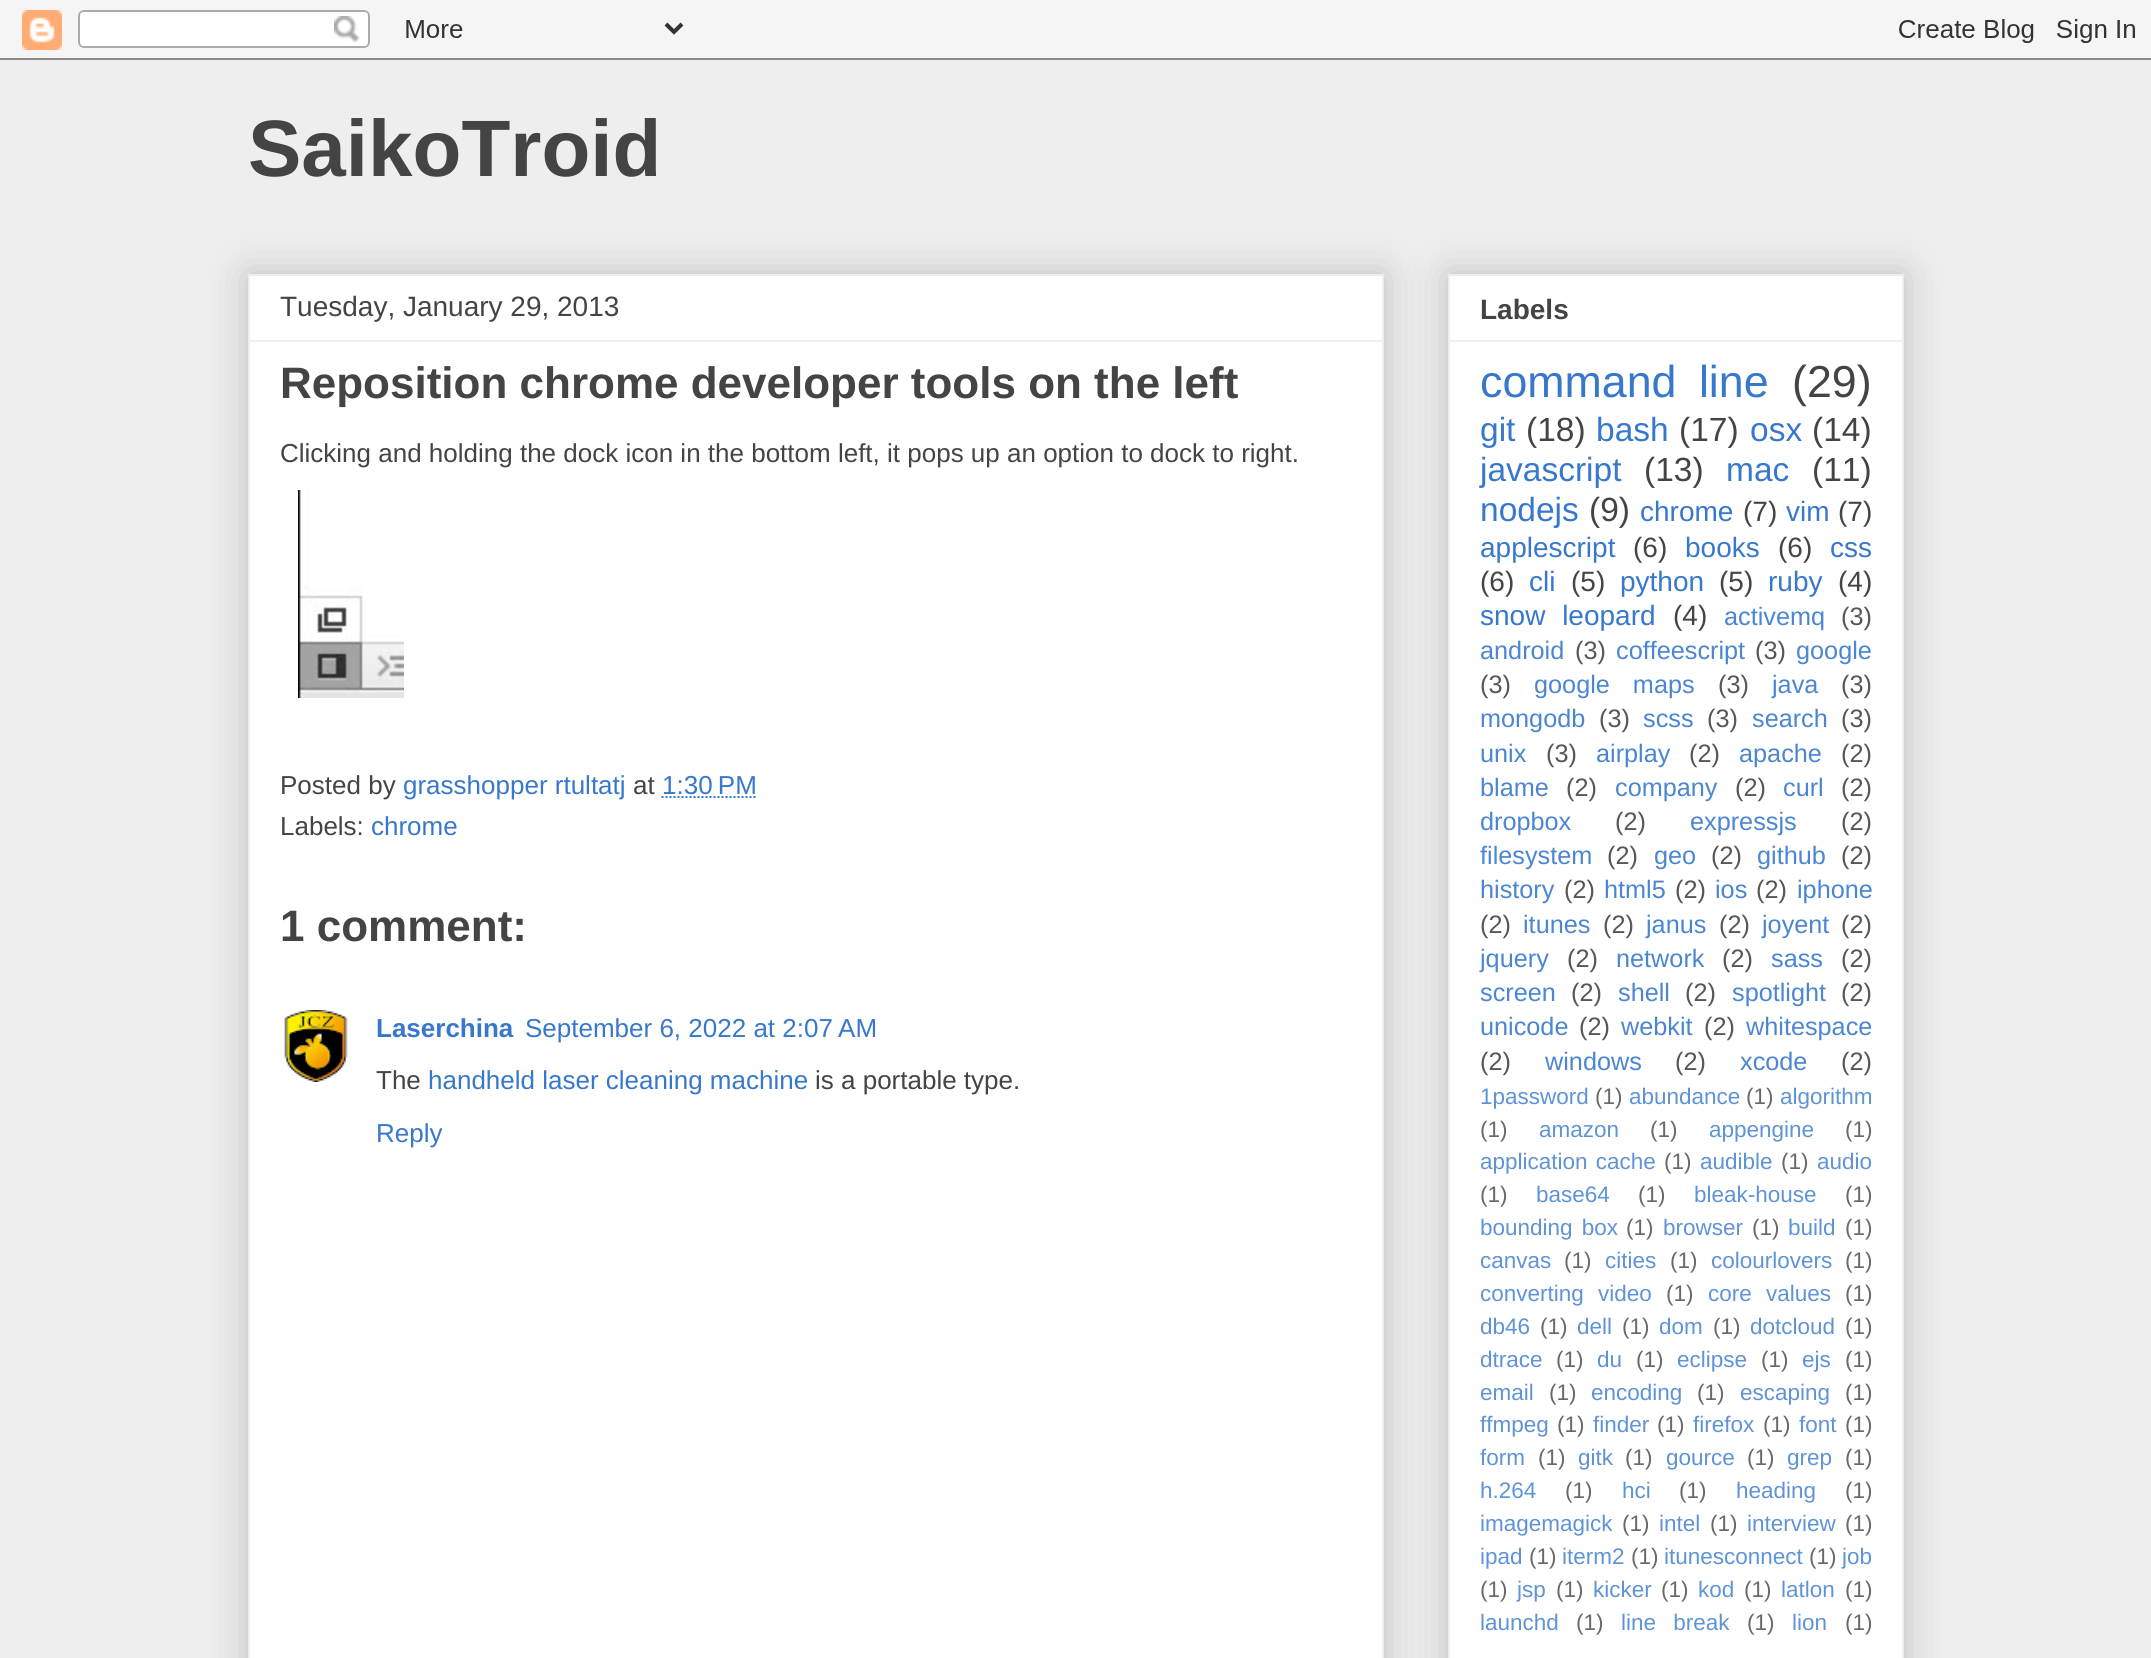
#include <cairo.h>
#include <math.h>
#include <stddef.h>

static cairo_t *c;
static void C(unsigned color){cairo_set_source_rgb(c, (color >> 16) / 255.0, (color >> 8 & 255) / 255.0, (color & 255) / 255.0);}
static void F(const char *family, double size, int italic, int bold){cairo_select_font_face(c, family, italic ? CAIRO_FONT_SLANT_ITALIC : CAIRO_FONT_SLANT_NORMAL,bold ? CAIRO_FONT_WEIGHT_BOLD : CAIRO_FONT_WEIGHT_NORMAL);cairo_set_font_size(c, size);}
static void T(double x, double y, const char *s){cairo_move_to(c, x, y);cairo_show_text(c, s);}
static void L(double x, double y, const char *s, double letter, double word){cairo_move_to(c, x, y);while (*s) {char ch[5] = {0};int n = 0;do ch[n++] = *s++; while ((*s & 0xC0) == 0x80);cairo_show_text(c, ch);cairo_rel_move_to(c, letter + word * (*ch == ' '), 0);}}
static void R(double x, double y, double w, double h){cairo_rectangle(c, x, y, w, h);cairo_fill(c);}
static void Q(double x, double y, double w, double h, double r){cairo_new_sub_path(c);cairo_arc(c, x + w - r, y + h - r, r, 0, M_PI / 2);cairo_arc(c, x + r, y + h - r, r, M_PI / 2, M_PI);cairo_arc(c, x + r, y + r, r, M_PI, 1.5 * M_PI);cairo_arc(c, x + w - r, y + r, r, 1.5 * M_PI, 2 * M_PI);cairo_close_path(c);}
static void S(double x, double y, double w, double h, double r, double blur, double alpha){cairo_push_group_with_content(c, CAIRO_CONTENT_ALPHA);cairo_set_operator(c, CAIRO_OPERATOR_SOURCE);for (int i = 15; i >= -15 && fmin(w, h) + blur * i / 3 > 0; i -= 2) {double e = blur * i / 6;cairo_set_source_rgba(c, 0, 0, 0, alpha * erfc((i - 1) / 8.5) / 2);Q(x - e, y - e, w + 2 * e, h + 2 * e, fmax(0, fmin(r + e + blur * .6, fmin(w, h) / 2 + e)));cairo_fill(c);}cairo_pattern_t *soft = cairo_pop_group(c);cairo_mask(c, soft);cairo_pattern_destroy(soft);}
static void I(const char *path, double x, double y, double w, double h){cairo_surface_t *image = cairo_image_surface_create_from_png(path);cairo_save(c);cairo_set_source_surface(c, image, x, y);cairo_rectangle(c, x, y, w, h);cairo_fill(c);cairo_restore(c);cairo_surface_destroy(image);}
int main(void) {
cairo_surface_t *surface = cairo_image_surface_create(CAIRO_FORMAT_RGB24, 2151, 1658);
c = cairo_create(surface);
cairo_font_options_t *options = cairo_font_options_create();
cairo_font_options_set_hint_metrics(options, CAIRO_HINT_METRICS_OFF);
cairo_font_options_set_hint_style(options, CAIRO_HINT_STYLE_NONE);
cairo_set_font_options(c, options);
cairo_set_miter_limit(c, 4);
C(0xeeeeee);
cairo_paint(c);
I("1.png",0,0,2151,60);
F("Liberation Sans",80,0,1);
C(0x444444);
T(248,176,"SaikoTroid");
C(0x000000);
S(248,274,1136,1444,0,20,.2);
C(0xffffff);
cairo_rectangle(c,249,275,1134,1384);
cairo_fill_preserve(c);
C(0xeeeeee);
cairo_stroke(c);
F("Liberation Sans",28,0,0);
C(0x444444);
T(280,316,"Tuesday, January 29, 2013");
C(0xeeeeee);
R(250,340,1132,2);
F("Liberation Sans",44,0,1);
C(0x444444);
T(280,398,"Reposition chrome developer tools on the left");
F("Liberation Sans",26,0,0);
T(280,462,"Clicking and holding the dock icon in the bottom left, it pops up an option to dock to right.");
I("2.png",298,490,106,208);
T(280,794,"Posted by");
C(0x3778cd);
T(403,794,"grasshopper rtultatj");
C(0x444444);
T(633,794,"at");
C(0x3778cd);
T(662,794,"1:30 PM");
cairo_new_path(c);
cairo_move_to(c,661.5,797);
cairo_line_to(c,756.5,797);
cairo_set_dash(c,(double[]){2,2},2,0);
cairo_stroke(c);
C(0x444444);
T(280,835,"Labels:");
C(0x3778cd);
T(371,835,"chrome");
F("Liberation Sans",44,0,1);
C(0x444444);
T(280,941,"1 comment:");
I("3.png",284,1010,64,72);
F("Liberation Sans",26,0,1);
C(0x3778cd);
T(376,1037,"Laserchina");
F("Liberation Sans",26,0,0);
T(525,1037,"September 6, 2022 at 2:07 AM");
C(0x444444);
T(376,1089,"The");
C(0x3778cd);
T(428,1089,"handheld laser cleaning machine");
C(0x444444);
T(815,1089,"is a portable type.");
C(0x3778cd);
T(376,1142,"Reply");
C(0x000000);
S(1448,274,456,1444,0,20,.2);
C(0xffffff);
cairo_rectangle(c,1449,275,454,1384);
cairo_fill_preserve(c);
C(0xeeeeee);
cairo_set_dash(c,NULL,0,0);
cairo_stroke(c);
F("Liberation Sans",28,0,1);
C(0x444444);
T(1480,319,"Labels");
C(0xeeeeee);
R(1450,340,452,2);
F("Liberation Sans",44.75,0,0);
C(0x3778cd);
L(1480,397,"command line",0,10);
C(0x444444);
T(1792,397,"(29)");
F("Liberation Sans",33.5,0,0);
C(0x3778cd);
T(1480,441,"git");
C(0x444444);
T(1526,441,"(18)");
C(0x3778cd);
T(1596,441,"bash");
C(0x444444);
T(1679,441,"(17)");
C(0x3778cd);
T(1750,441,"osx");
C(0x444444);
T(1812,441,"(14)");
C(0x3778cd);
T(1480,481,"javascript");
C(0x444444);
T(1644,481,"(13)");
C(0x3778cd);
T(1726,481,"mac");
C(0x444444);
T(1812,481,"(11)");
C(0x3778cd);
T(1480,521,"nodejs");
C(0x444444);
T(1589,521,"(9)");
F("Liberation Sans",28,0,0);
C(0x3778cd);
T(1640,521,"chrome");
C(0x444444);
T(1743,521,"(7)");
C(0x3778cd);
T(1786,521,"vim");
C(0x444444);
T(1838,521,"(7)");
C(0x3778cd);
T(1480,557,"applescript");
C(0x444444);
T(1633,557,"(6)");
C(0x3778cd);
T(1685,557,"books");
C(0x444444);
T(1778,557,"(6)");
C(0x3778cd);
T(1830,557,"css");
C(0x444444);
T(1480,591,"(6)");
C(0x3778cd);
T(1529,591,"cli");
C(0x444444);
T(1571,591,"(5)");
C(0x3778cd);
T(1620,591,"python");
C(0x444444);
T(1719,591,"(5)");
C(0x3778cd);
T(1768,591,"ruby");
C(0x444444);
T(1838,591,"(4)");
C(0x3778cd);
L(1480,625,"snow leopard",0,9);
C(0x444444);
T(1673,625,"(4)");
F("Liberation Sans",25.25,0,0);
C(0x4b86d2);
T(1724,625,"activemq");
C(0x575757);
T(1841,625,"(3)");
C(0x4b86d2);
T(1480,659,"android");
C(0x575757);
T(1575,659,"(3)");
C(0x4b86d2);
T(1616,659,"coffeescript");
C(0x575757);
T(1755,659,"(3)");
C(0x4b86d2);
T(1796,659,"google");
C(0x575757);
T(1480,693,"(3)");
C(0x4b86d2);
L(1534,693,"google maps",0,16);
C(0x575757);
T(1718,693,"(3)");
C(0x4b86d2);
T(1772,693,"java");
C(0x575757);
T(1841,693,"(3)");
C(0x4b86d2);
T(1480,727,"mongodb");
C(0x575757);
T(1599,727,"(3)");
C(0x4b86d2);
T(1643,727,"scss");
C(0x575757);
T(1707,727,"(3)");
C(0x4b86d2);
T(1752,727,"search");
C(0x575757);
T(1841,727,"(3)");
C(0x4b86d2);
T(1480,762,"unix");
C(0x575757);
T(1546,762,"(3)");
C(0x4b86d2);
T(1596,762,"airplay");
C(0x575757);
T(1689,762,"(2)");
C(0x4b86d2);
T(1739,762,"apache");
C(0x575757);
T(1841,762,"(2)");
C(0x4b86d2);
T(1480,796,"blame");
C(0x575757);
T(1566,796,"(2)");
C(0x4b86d2);
T(1615,796,"company");
C(0x575757);
T(1735,796,"(2)");
C(0x4b86d2);
T(1783,796,"curl");
C(0x575757);
T(1841,796,"(2)");
C(0x4b86d2);
T(1480,830,"dropbox");
C(0x575757);
T(1615,830,"(2)");
C(0x4b86d2);
T(1690,830,"expressjs");
C(0x575757);
T(1841,830,"(2)");
C(0x4b86d2);
T(1480,864,"filesystem");
C(0x575757);
T(1607,864,"(2)");
C(0x4b86d2);
T(1654,864,"geo");
C(0x575757);
T(1711,864,"(2)");
C(0x4b86d2);
T(1757,864,"github");
C(0x575757);
T(1841,864,"(2)");
C(0x4b86d2);
T(1480,898,"history");
C(0x575757);
T(1564,898,"(2)");
C(0x4b86d2);
T(1604,898,"html5");
C(0x575757);
T(1675,898,"(2)");
C(0x4b86d2);
T(1715,898,"ios");
C(0x575757);
T(1756,898,"(2)");
C(0x4b86d2);
T(1797,898,"iphone");
C(0x575757);
T(1480,933,"(2)");
C(0x4b86d2);
T(1523,933,"itunes");
C(0x575757);
T(1603,933,"(2)");
C(0x4b86d2);
T(1646,933,"janus");
C(0x575757);
T(1719,933,"(2)");
C(0x4b86d2);
T(1762,933,"joyent");
C(0x575757);
T(1841,933,"(2)");
C(0x4b86d2);
T(1480,967,"jquery");
C(0x575757);
T(1567,967,"(2)");
C(0x4b86d2);
T(1616,967,"network");
C(0x575757);
T(1722,967,"(2)");
C(0x4b86d2);
T(1771,967,"sass");
C(0x575757);
T(1841,967,"(2)");
C(0x4b86d2);
T(1480,1001,"screen");
C(0x575757);
T(1571,1001,"(2)");
C(0x4b86d2);
T(1618,1001,"shell");
C(0x575757);
T(1685,1001,"(2)");
C(0x4b86d2);
T(1732,1001,"spotlight");
C(0x575757);
T(1841,1001,"(2)");
C(0x4b86d2);
T(1480,1035,"unicode");
C(0x575757);
T(1579,1035,"(2)");
C(0x4b86d2);
T(1621,1035,"webkit");
C(0x575757);
T(1704,1035,"(2)");
C(0x4b86d2);
T(1746,1035,"whitespace");
C(0x575757);
T(1480,1070,"(2)");
C(0x4b86d2);
T(1545,1070,"windows");
C(0x575757);
T(1675,1070,"(2)");
C(0x4b86d2);
T(1740,1070,"xcode");
C(0x575757);
T(1841,1070,"(2)");
F("Liberation Sans",22.5,0,0);
C(0x5f93d7);
T(1480,1104,"1password");
C(0x696969);
T(1595,1104,"(1)");
C(0x5f93d7);
T(1629,1104,"abundance");
C(0x696969);
T(1746,1104,"(1)");
C(0x5f93d7);
T(1780,1104,"algorithm");
C(0x696969);
T(1480,1137,"(1)");
C(0x5f93d7);
T(1539,1137,"amazon");
C(0x696969);
T(1650,1137,"(1)");
C(0x5f93d7);
T(1709,1137,"appengine");
C(0x696969);
T(1845,1137,"(1)");
C(0x5f93d7);
L(1480,1169,"application cache",0,2);
C(0x696969);
T(1664,1169,"(1)");
C(0x5f93d7);
T(1700,1169,"audible");
C(0x696969);
T(1781,1169,"(1)");
C(0x5f93d7);
T(1817,1169,"audio");
C(0x696969);
T(1480,1202,"(1)");
C(0x5f93d7);
T(1536,1202,"base64");
C(0x696969);
T(1638,1202,"(1)");
C(0x5f93d7);
T(1694,1202,"bleak-house");
C(0x696969);
T(1845,1202,"(1)");
C(0x5f93d7);
L(1480,1235,"bounding box",0,3);
C(0x696969);
T(1626,1235,"(1)");
C(0x5f93d7);
T(1663,1235,"browser");
C(0x696969);
T(1752,1235,"(1)");
C(0x5f93d7);
T(1788,1235,"build");
C(0x696969);
T(1845,1235,"(1)");
C(0x5f93d7);
T(1480,1268,"canvas");
C(0x696969);
T(1564,1268,"(1)");
C(0x5f93d7);
T(1605,1268,"cities");
C(0x696969);
T(1670,1268,"(1)");
C(0x5f93d7);
T(1711,1268,"colourlovers");
C(0x696969);
T(1845,1268,"(1)");
C(0x5f93d7);
L(1480,1301,"converting video",0,8);
C(0x696969);
T(1666,1301,"(1)");
C(0x5f93d7);
L(1708,1301,"core values",0,8);
C(0x696969);
T(1845,1301,"(1)");
C(0x5f93d7);
T(1480,1334,"db46");
C(0x696969);
T(1540,1334,"(1)");
C(0x5f93d7);
T(1577,1334,"dell");
C(0x696969);
T(1622,1334,"(1)");
C(0x5f93d7);
T(1659,1334,"dom");
C(0x696969);
T(1713,1334,"(1)");
C(0x5f93d7);
T(1750,1334,"dotcloud");
C(0x696969);
T(1845,1334,"(1)");
C(0x5f93d7);
T(1480,1367,"dtrace");
C(0x696969);
T(1556,1367,"(1)");
C(0x5f93d7);
T(1597,1367,"du");
C(0x696969);
T(1636,1367,"(1)");
C(0x5f93d7);
T(1677,1367,"eclipse");
C(0x696969);
T(1761,1367,"(1)");
C(0x5f93d7);
T(1802,1367,"ejs");
C(0x696969);
T(1845,1367,"(1)");
C(0x5f93d7);
T(1480,1400,"email");
C(0x696969);
T(1549,1400,"(1)");
C(0x5f93d7);
T(1591,1400,"encoding");
C(0x696969);
T(1697,1400,"(1)");
C(0x5f93d7);
T(1740,1400,"escaping");
C(0x696969);
T(1845,1400,"(1)");
C(0x5f93d7);
T(1480,1432,"ffmpeg");
C(0x696969);
T(1557,1432,"(1)");
C(0x5f93d7);
T(1593,1432,"finder");
C(0x696969);
T(1657,1432,"(1)");
C(0x5f93d7);
T(1693,1432,"firefox");
C(0x696969);
T(1763,1432,"(1)");
C(0x5f93d7);
T(1799,1432,"font");
C(0x696969);
T(1845,1432,"(1)");
C(0x5f93d7);
T(1480,1465,"form");
C(0x696969);
T(1538,1465,"(1)");
C(0x5f93d7);
T(1578,1465,"gitk");
C(0x696969);
T(1625,1465,"(1)");
C(0x5f93d7);
T(1666,1465,"gource");
C(0x696969);
T(1747,1465,"(1)");
C(0x5f93d7);
T(1787,1465,"grep");
C(0x696969);
T(1845,1465,"(1)");
C(0x5f93d7);
T(1480,1498,"h.264");
C(0x696969);
T(1565,1498,"(1)");
C(0x5f93d7);
T(1622,1498,"hci");
C(0x696969);
T(1679,1498,"(1)");
C(0x5f93d7);
T(1736,1498,"heading");
C(0x696969);
T(1845,1498,"(1)");
C(0x5f93d7);
T(1480,1531,"imagemagick");
C(0x696969);
T(1622,1531,"(1)");
C(0x5f93d7);
T(1659,1531,"intel");
C(0x696969);
T(1710,1531,"(1)");
C(0x5f93d7);
T(1747,1531,"interview");
C(0x696969);
T(1845,1531,"(1)");
C(0x5f93d7);
T(1480,1564,"ipad");
C(0x696969);
T(1529,1564,"(1)");
C(0x5f93d7);
T(1562,1564,"iterm2");
C(0x696969);
T(1631,1564,"(1)");
C(0x5f93d7);
T(1664,1564,"itunesconnect");
C(0x696969);
T(1809,1564,"(1)");
C(0x5f93d7);
T(1842,1564,"job");
C(0x696969);
T(1480,1597,"(1)");
C(0x5f93d7);
T(1517,1597,"jsp");
C(0x696969);
T(1556,1597,"(1)");
C(0x5f93d7);
T(1593,1597,"kicker");
C(0x696969);
T(1661,1597,"(1)");
C(0x5f93d7);
T(1698,1597,"kod");
C(0x696969);
T(1744,1597,"(1)");
C(0x5f93d7);
T(1781,1597,"latlon");
C(0x696969);
T(1845,1597,"(1)");
C(0x5f93d7);
T(1480,1630,"launchd");
C(0x696969);
T(1576,1630,"(1)");
C(0x5f93d7);
L(1621,1630,"line break",0,11);
C(0x696969);
T(1747,1630,"(1)");
C(0x5f93d7);
T(1792,1630,"lion");
C(0x696969);
T(1845,1630,"(1)");
cairo_surface_write_to_png(surface, "o.png");
cairo_font_options_destroy(options);
cairo_destroy(c);
cairo_surface_destroy(surface);
return 0;
}
